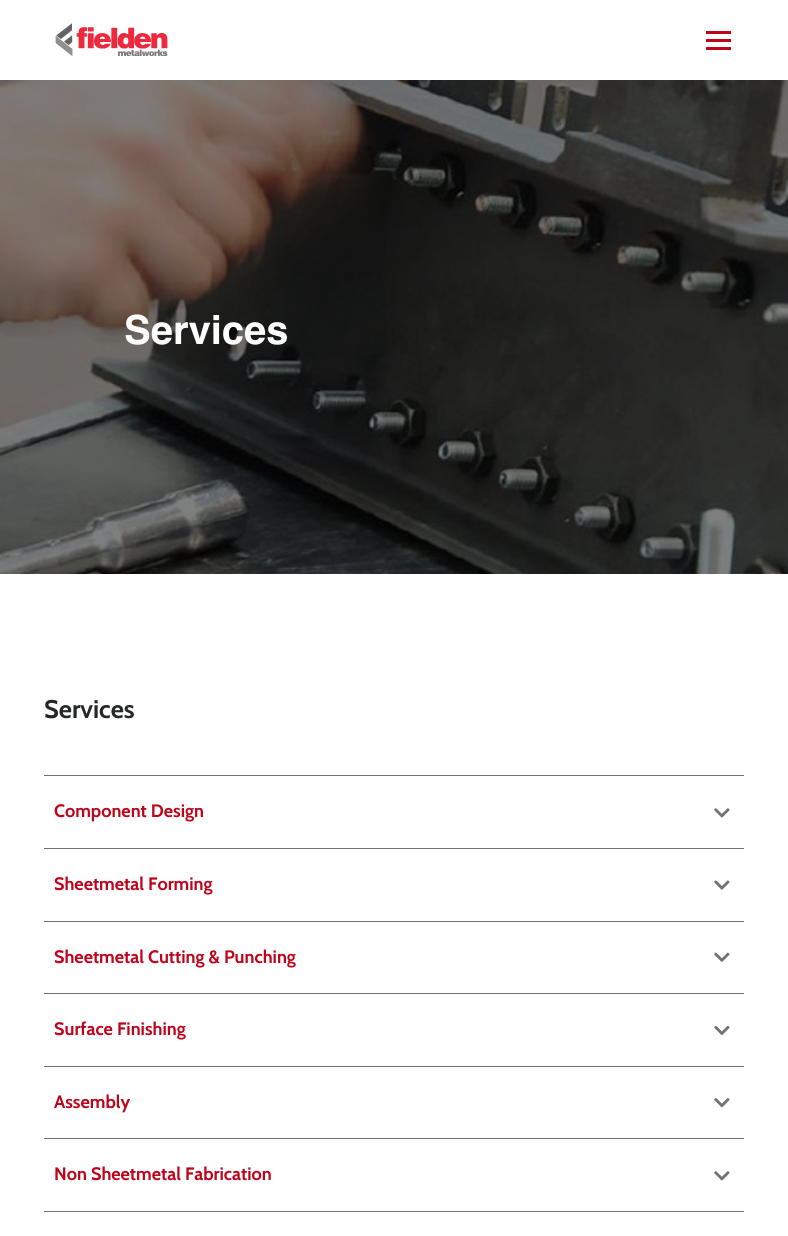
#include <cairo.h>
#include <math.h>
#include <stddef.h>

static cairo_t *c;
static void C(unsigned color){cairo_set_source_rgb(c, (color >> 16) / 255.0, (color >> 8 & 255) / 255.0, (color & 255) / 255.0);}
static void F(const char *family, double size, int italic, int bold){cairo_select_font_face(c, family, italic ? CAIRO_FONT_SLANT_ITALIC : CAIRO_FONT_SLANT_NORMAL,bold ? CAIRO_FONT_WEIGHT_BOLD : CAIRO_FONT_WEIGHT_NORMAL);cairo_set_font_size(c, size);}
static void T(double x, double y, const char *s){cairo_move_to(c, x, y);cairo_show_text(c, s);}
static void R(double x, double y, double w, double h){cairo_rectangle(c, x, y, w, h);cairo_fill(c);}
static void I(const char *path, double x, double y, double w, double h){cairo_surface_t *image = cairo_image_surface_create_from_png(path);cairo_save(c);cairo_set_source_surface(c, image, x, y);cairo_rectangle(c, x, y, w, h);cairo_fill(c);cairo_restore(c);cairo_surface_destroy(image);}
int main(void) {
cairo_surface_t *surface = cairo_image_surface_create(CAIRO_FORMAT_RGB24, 788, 1236);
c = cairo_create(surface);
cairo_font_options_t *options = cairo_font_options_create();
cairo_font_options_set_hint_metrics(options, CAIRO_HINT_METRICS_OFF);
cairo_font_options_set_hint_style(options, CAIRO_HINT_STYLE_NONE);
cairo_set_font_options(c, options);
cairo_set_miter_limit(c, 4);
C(0xffffff);
cairo_paint(c);
I("1.png",55,23,113,33);
C(0xbf031b);
R(706,39,25,3);
R(706,31,25,3);
R(706,47,25,3);
I("2.png",0,80,788,494);
F("Helvetica",40,0,1);
C(0xffffff);
T(124,344,"Services");
F("Cabin",25.5,0,1);
C(0x252626);
T(44,718,"Services");
C(0x707273);
R(44,775,700,1);
F("Cabin",18,0,1);
C(0xbf031b);
T(54,817,"Component Design");
I("3.png",714,808,16,10);
C(0x707273);
R(44,848,700,1);
C(0xbf031b);
T(54,890,"Sheetmetal Forming");
I("4.png",714,880,16,10);
C(0x707273);
R(44,921,700,1);
C(0xbf031b);
T(54,963,"Sheetmetal Cutting & Punching");
I("5.png",714,952,16,10);
C(0x707273);
R(44,993,700,1);
C(0xbf031b);
T(54,1035,"Surface Finishing");
I("6.png",714,1025,16,10);
C(0x707273);
R(44,1066,700,1);
C(0xbf031b);
T(54,1108,"Assembly");
I("7.png",714,1098,16,10);
C(0x707273);
R(44,1138,700,1);
R(44,1211,700,1);
C(0xbf031b);
T(54,1180,"Non Sheetmetal Fabrication");
I("8.png",714,1171,16,10);
cairo_surface_write_to_png(surface, "o.png");
cairo_font_options_destroy(options);
cairo_destroy(c);
cairo_surface_destroy(surface);
return 0;
}
